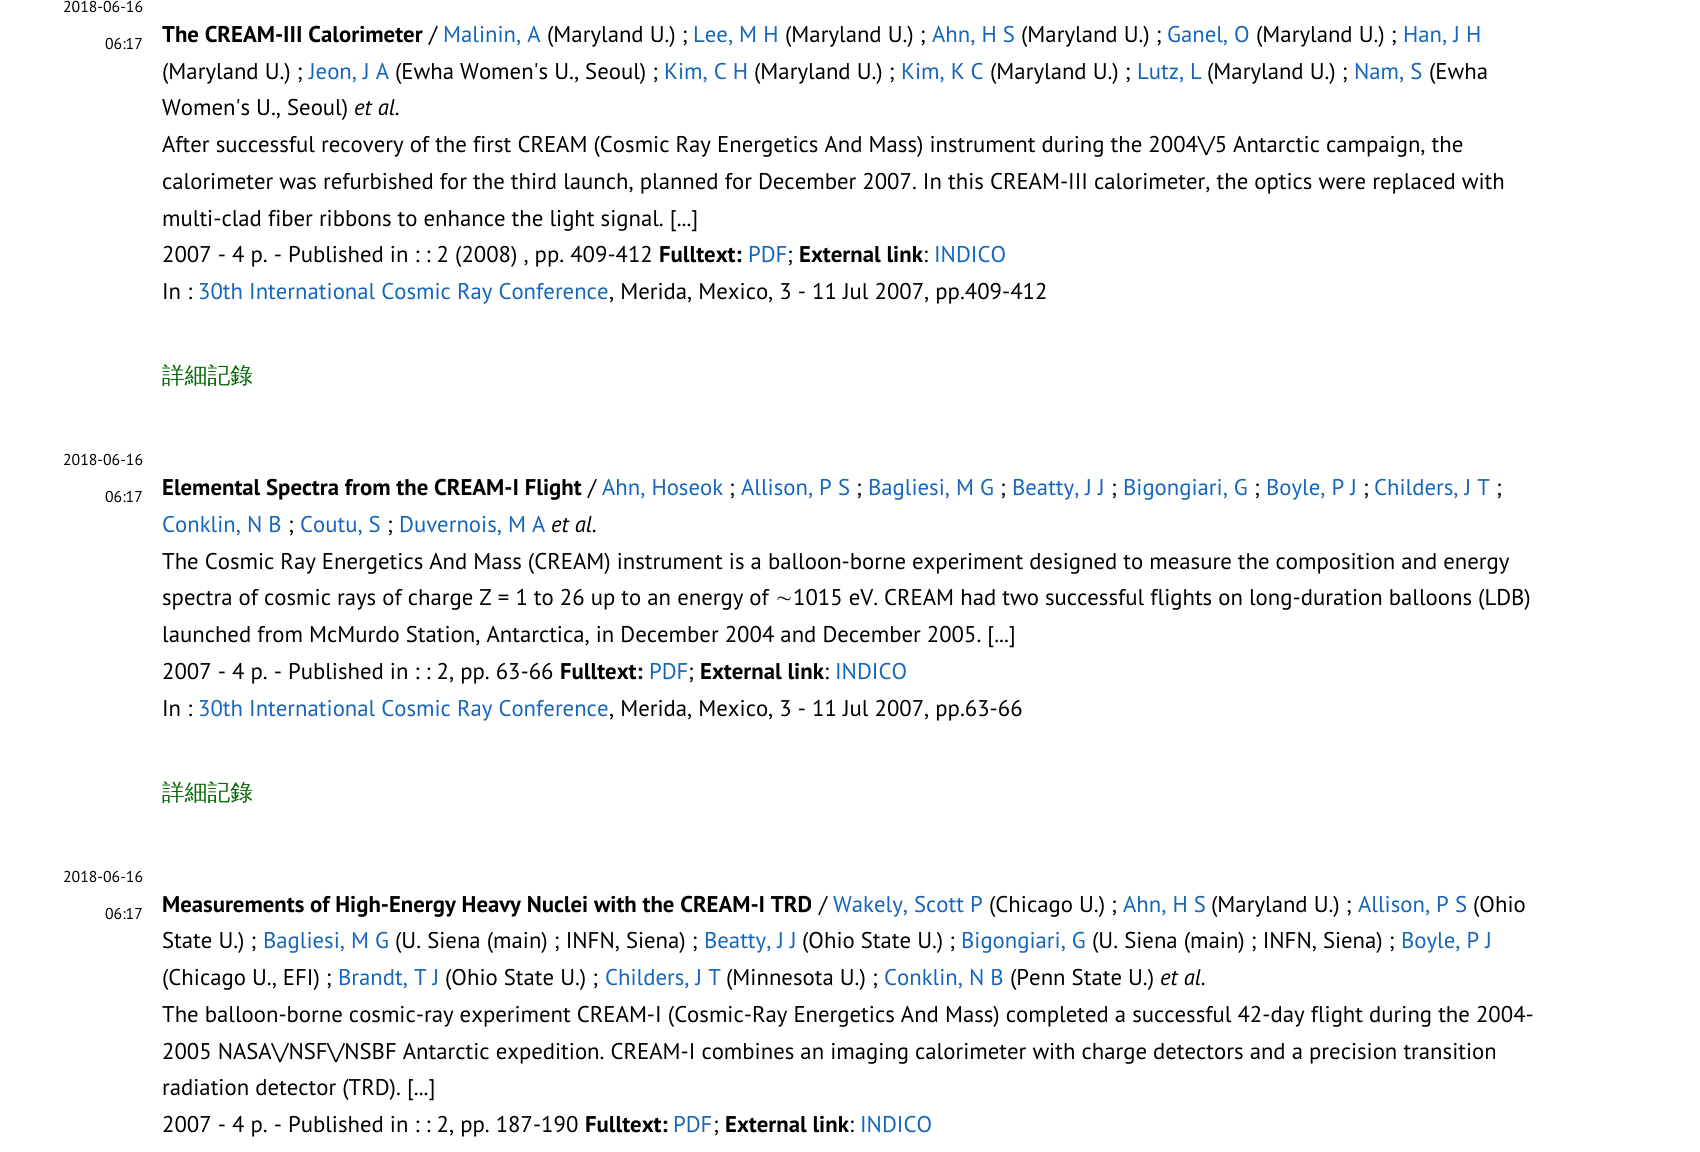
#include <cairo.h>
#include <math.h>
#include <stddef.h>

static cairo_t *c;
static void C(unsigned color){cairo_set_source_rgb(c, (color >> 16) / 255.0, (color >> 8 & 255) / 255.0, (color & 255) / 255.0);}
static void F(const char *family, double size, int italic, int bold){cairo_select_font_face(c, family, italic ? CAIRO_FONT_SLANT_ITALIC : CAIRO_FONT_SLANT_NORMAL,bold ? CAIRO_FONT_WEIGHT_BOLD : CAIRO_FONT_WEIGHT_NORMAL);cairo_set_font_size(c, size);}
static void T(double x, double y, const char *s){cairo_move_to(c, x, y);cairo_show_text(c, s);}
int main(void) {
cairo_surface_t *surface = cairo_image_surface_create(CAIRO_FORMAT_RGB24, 1700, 1152);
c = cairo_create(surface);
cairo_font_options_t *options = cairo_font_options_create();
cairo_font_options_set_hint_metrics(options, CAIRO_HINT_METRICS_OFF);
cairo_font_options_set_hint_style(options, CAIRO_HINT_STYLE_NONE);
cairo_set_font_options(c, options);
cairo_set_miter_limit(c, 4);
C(0xffffff);
cairo_paint(c);
F("PT Sans",15.75,0,0);
C(0x000000);
T(63,12,"2018-06-16");
T(105,49,"06:17");
F("PT Sans",22.75,0,1);
T(162,42,"The CREAM-III Calorimeter");
F("PT Sans",22.75,0,0);
T(429,42,"/");
C(0x1565ba);
T(443,42,"Malinin, A");
C(0x000000);
T(547,42,"(Maryland U.) ;");
C(0x1565ba);
T(693,42,"Lee, M H");
C(0x000000);
T(785,42,"(Maryland U.) ;");
C(0x1565ba);
T(932,42,"Ahn, H S");
C(0x000000);
T(1021,42,"(Maryland U.) ;");
C(0x1565ba);
T(1167,42,"Ganel, O");
C(0x000000);
T(1256,42,"(Maryland U.) ;");
C(0x1565ba);
T(1403,42,"Han, J H");
C(0x000000);
T(162,79,"(Maryland U.) ;");
C(0x1565ba);
T(309,79,"Jeon, J A");
C(0x000000);
T(395,79,"(Ewha Women's U., Seoul) ;");
C(0x1565ba);
T(664,79,"Kim, C H");
C(0x000000);
T(754,79,"(Maryland U.) ;");
C(0x1565ba);
T(901,79,"Kim, K C");
C(0x000000);
T(990,79,"(Maryland U.) ;");
C(0x1565ba);
T(1137,79,"Lutz, L");
C(0x000000);
T(1207,79,"(Maryland U.) ;");
C(0x1565ba);
T(1354,79,"Nam, S");
C(0x000000);
T(1429,79,"(Ewha");
T(162,115,"Women's U., Seoul)");
F("PT Sans",22.75,1,0);
T(354,115,"et al.");
F("PT Sans",22.75,0,0);
T(162,152,"After successful recovery of the first CREAM (Cosmic Ray Energetics And Mass) instrument during the 2004\\/5 Antarctic campaign, the");
T(162,189,"calorimeter was refurbished for the third launch, planned for December 2007. In this CREAM-III calorimeter, the optics were replaced with");
T(162,226,"multi-clad fiber ribbons to enhance the light signal. [...]");
T(162,262,"2007 - 4 p. - Published in : : 2 (2008) , pp. 409-412");
F("PT Sans",22.75,0,1);
T(659,262,"Fulltext:");
F("PT Sans",22.75,0,0);
C(0x1565ba);
T(748,262,"PDF");
C(0x000000);
T(787,262,";");
F("PT Sans",22.75,0,1);
T(799,262,"External link");
F("PT Sans",22.75,0,0);
T(923,262,":");
C(0x1565ba);
T(934,262,"INDICO");
C(0x000000);
T(162,299,"In :");
C(0x1565ba);
T(198,299,"30th International Cosmic Ray Conference");
C(0x000000);
T(609,299,", Merida, Mexico, 3 - 11 Jul 2007, pp.409-412");
F("WenQuanYi Zen Hei Medium",22.75,0,0);
C(0x006600);
T(162,383,"詳細記錄");
F("PT Sans",15.75,0,0);
C(0x000000);
T(63,465,"2018-06-16");
T(105,502,"06:17");
F("PT Sans",22.75,0,1);
T(162,495,"Elemental Spectra from the CREAM-I Flight");
F("PT Sans",22.75,0,0);
T(588,495,"/");
C(0x1565ba);
T(602,495,"Ahn, Hoseok");
C(0x000000);
T(729,495,";");
C(0x1565ba);
T(741,495,"Allison, P S");
C(0x000000);
T(856,495,";");
C(0x1565ba);
T(868,495,"Bagliesi, M G");
C(0x000000);
T(1000,495,";");
C(0x1565ba);
T(1012,495,"Beatty, J J");
C(0x000000);
T(1111,495,";");
C(0x1565ba);
T(1123,495,"Bigongiari, G");
C(0x000000);
T(1254,495,";");
C(0x1565ba);
T(1266,495,"Boyle, P J");
C(0x000000);
T(1363,495,";");
C(0x1565ba);
T(1374,495,"Childers, J T");
C(0x000000);
T(1496,495,";");
C(0x1565ba);
T(162,532,"Conklin, N B");
C(0x000000);
T(288,532,";");
C(0x1565ba);
T(300,532,"Coutu, S");
C(0x000000);
T(387,532,";");
C(0x1565ba);
T(399,532,"Duvernois, M A");
F("PT Sans",22.75,1,0);
C(0x000000);
T(551,532,"et al.");
F("PT Sans",22.75,0,0);
T(162,569,"The Cosmic Ray Energetics And Mass (CREAM) instrument is a balloon-borne experiment designed to measure the composition and energy");
T(162,605,"spectra of cosmic rays of charge Z = 1 to 26 up to an energy of");
F("WenQuanYi Zen Hei Medium",22.75,0,0);
T(775,605,"∼");
F("PT Sans",22.75,0,0);
T(793,605,"1015 eV. CREAM had two successful flights on long-duration balloons (LDB)");
T(162,642,"launched from McMurdo Station, Antarctica, in December 2004 and December 2005. [...]");
T(162,679,"2007 - 4 p. - Published in : : 2, pp. 63-66");
F("PT Sans",22.75,0,1);
T(560,679,"Fulltext:");
F("PT Sans",22.75,0,0);
C(0x1565ba);
T(649,679,"PDF");
C(0x000000);
T(688,679,";");
F("PT Sans",22.75,0,1);
T(700,679,"External link");
F("PT Sans",22.75,0,0);
T(824,679,":");
C(0x1565ba);
T(835,679,"INDICO");
C(0x000000);
T(162,716,"In :");
C(0x1565ba);
T(198,716,"30th International Cosmic Ray Conference");
C(0x000000);
T(609,716,", Merida, Mexico, 3 - 11 Jul 2007, pp.63-66");
F("WenQuanYi Zen Hei Medium",22.75,0,0);
C(0x006600);
T(162,800,"詳細記錄");
F("PT Sans",15.75,0,0);
C(0x000000);
T(63,882,"2018-06-16");
T(105,919,"06:17");
F("PT Sans",22.75,0,1);
T(162,912,"Measurements of High-Energy Heavy Nuclei with the CREAM-I TRD");
F("PT Sans",22.75,0,0);
T(819,912,"/");
C(0x1565ba);
T(833,912,"Wakely, Scott P");
C(0x000000);
T(989,912,"(Chicago U.) ;");
C(0x1565ba);
T(1123,912,"Ahn, H S");
C(0x000000);
T(1211,912,"(Maryland U.) ;");
C(0x1565ba);
T(1358,912,"Allison, P S");
C(0x000000);
T(1473,912,"(Ohio");
T(162,948,"State U.) ;");
C(0x1565ba);
T(263,948,"Bagliesi, M G");
C(0x000000);
T(395,948,"(U. Siena (main) ; INFN, Siena) ;");
C(0x1565ba);
T(704,948,"Beatty, J J");
C(0x000000);
T(802,948,"(Ohio State U.) ;");
C(0x1565ba);
T(961,948,"Bigongiari, G");
C(0x000000);
T(1092,948,"(U. Siena (main) ; INFN, Siena) ;");
C(0x1565ba);
T(1401,948,"Boyle, P J");
C(0x000000);
T(162,985,"(Chicago U., EFI) ;");
C(0x1565ba);
T(338,985,"Brandt, T J");
C(0x000000);
T(445,985,"(Ohio State U.) ;");
C(0x1565ba);
T(605,985,"Childers, J T");
C(0x000000);
T(726,985,"(Minnesota U.) ;");
C(0x1565ba);
T(884,985,"Conklin, N B");
C(0x000000);
T(1010,985,"(Penn State U.)");
F("PT Sans",22.75,1,0);
T(1160,985,"et al.");
F("PT Sans",22.75,0,0);
T(162,1022,"The balloon-borne cosmic-ray experiment CREAM-I (Cosmic-Ray Energetics And Mass) completed a successful 42-day flight during the 2004-");
T(162,1059,"2005 NASA\\/NSF\\/NSBF Antarctic expedition. CREAM-I combines an imaging calorimeter with charge detectors and a precision transition");
T(162,1095,"radiation detector (TRD). [...]");
T(162,1132,"2007 - 4 p. - Published in : : 2, pp. 187-190");
F("PT Sans",22.75,0,1);
T(585,1132,"Fulltext:");
F("PT Sans",22.75,0,0);
C(0x1565ba);
T(673,1132,"PDF");
C(0x000000);
T(713,1132,";");
F("PT Sans",22.75,0,1);
T(725,1132,"External link");
F("PT Sans",22.75,0,0);
T(849,1132,":");
C(0x1565ba);
T(860,1132,"INDICO");
cairo_surface_write_to_png(surface, "o.png");
cairo_font_options_destroy(options);
cairo_destroy(c);
cairo_surface_destroy(surface);
return 0;
}
